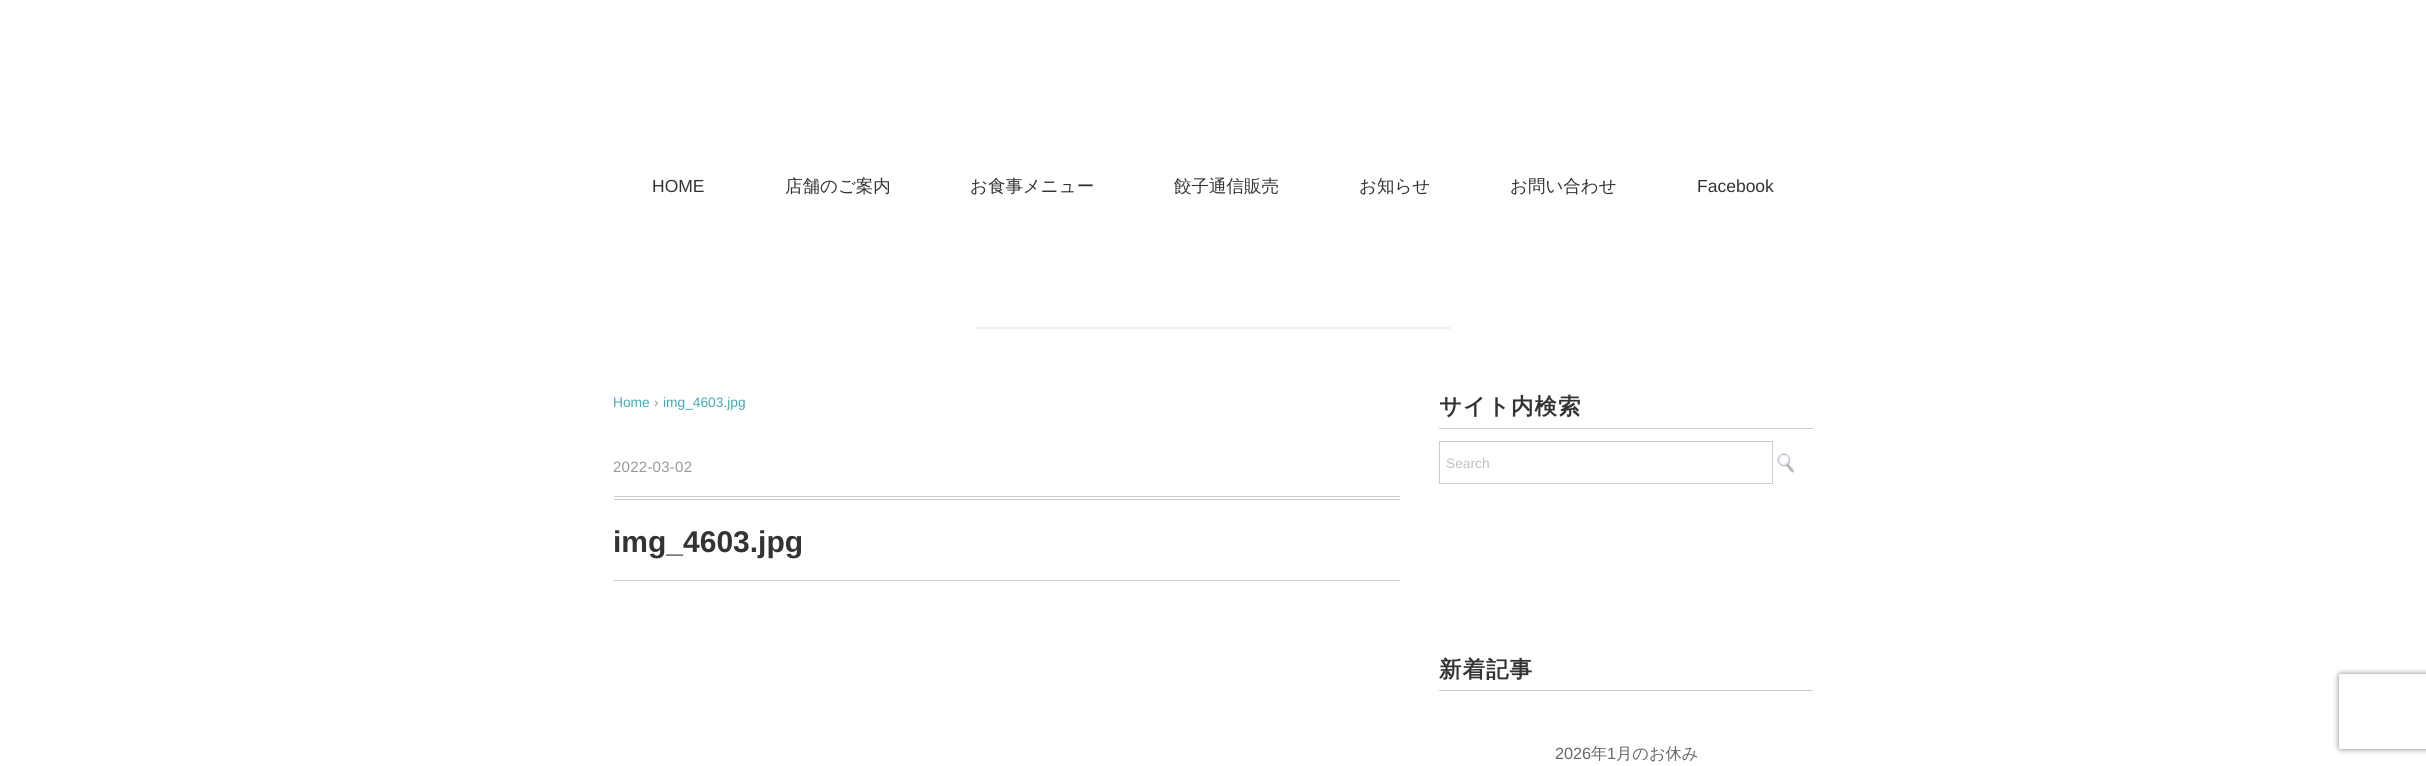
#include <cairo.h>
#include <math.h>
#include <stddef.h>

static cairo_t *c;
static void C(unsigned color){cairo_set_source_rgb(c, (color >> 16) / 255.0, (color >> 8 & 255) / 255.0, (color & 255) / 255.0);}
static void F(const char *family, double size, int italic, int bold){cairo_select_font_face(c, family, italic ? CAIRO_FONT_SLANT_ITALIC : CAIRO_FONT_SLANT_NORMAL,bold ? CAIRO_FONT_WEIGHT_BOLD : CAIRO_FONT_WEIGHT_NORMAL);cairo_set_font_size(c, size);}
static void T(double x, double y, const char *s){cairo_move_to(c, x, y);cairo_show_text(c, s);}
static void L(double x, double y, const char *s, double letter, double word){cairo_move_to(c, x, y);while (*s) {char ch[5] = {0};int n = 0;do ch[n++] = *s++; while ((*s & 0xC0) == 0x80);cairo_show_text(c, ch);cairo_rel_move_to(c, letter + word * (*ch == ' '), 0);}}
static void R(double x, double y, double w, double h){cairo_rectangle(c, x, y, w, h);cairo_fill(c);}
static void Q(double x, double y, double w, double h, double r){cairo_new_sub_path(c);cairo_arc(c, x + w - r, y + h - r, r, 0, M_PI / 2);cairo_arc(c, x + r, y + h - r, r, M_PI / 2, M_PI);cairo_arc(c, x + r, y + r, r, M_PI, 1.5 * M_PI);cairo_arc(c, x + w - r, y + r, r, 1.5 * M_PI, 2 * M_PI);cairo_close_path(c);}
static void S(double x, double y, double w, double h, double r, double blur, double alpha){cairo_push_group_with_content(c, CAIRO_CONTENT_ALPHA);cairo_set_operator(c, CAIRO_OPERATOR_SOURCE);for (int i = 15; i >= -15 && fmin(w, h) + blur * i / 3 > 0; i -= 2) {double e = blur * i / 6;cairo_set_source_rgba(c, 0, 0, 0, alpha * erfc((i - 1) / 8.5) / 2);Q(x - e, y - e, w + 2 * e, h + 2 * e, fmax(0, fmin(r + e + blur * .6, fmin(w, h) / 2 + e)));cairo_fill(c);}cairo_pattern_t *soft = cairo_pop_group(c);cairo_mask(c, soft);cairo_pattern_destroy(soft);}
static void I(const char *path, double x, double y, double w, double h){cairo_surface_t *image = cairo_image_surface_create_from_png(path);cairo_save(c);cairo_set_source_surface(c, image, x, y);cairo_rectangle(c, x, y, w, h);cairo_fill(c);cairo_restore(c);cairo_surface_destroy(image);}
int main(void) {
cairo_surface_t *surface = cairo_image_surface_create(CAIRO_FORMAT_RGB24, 2426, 766);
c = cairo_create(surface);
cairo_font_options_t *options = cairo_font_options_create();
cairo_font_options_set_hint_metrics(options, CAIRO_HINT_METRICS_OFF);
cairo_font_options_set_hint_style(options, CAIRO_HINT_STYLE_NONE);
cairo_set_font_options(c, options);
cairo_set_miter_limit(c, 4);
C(0xffffff);
cairo_paint(c);
F("Liberation Sans",17.5,0,0);
C(0x333333);
T(652,192,"HOME");
F("WenQuanYi Zen Hei Medium",17.5,0,0);
T(785,192,"店舗のご案内");
T(970,192,"お食事メニュー");
T(1174,192,"餃子通信販売");
T(1359,192,"お知らせ");
T(1510,192,"お問い合わせ");
F("Liberation Sans",17.5,0,0);
T(1697,192,"Facebook");
cairo_new_path(c);
cairo_move_to(c,976,328);
cairo_line_to(c,1451,328);
C(0xcccccc);
cairo_set_line_width(c,1.2);
cairo_set_dash(c,(double[]){1.25,1.25},2,0);
cairo_stroke(c);
F("Liberation Sans",13.75,0,0);
C(0x45aab8);
T(613,407,"Home");
C(0x999999);
T(654,407,"›");
C(0x45aab8);
T(663,407,"img_4603.jpg");
F("Liberation Sans",15,0,0);
C(0x999999);
L(613,472,"2022-03-02",.25,0);
C(0xcccccc);
R(614,496,786,1);
R(614,499,786,1);
R(614,580,786,1);
F("Liberation Sans",30,0,1);
C(0x333333);
T(613,552,"img_4603.jpg");
C(0xcccccc);
R(1439,428,374,1);
F("WenQuanYi Zen Hei",22.5,0,1);
C(0x333333);
L(1439,414,"サイト内検索",1,0);
cairo_rectangle(c,1439.5,441.5,333,42);
C(0xcccccc);
cairo_set_line_width(c,1);
cairo_set_dash(c,NULL,0,0);
cairo_stroke(c);
F("Liberation Sans",13.75,0,0);
C(0xc0c0c0);
T(1446,468,"Search");
I("1.png",1777,453,17,20);
C(0xcccccc);
R(1439,690,374,1);
F("WenQuanYi Zen Hei",22.5,0,1);
C(0x333333);
L(1439,677,"新着記事",1,0);
F("Liberation Sans",16.25,0,0);
C(0x666666);
T(1555,759,"2026");
F("WenQuanYi Zen Hei Medium",16.25,0,0);
T(1591,759,"年");
F("Liberation Sans",16.25,0,0);
T(1607,759,"1");
F("WenQuanYi Zen Hei Medium",16.25,0,0);
T(1616,759,"月のお休み");
cairo_save(c);
cairo_set_fill_rule(c,CAIRO_FILL_RULE_EVEN_ODD);
cairo_new_path(c);
cairo_move_to(c,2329,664);
cairo_line_to(c,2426,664);
cairo_line_to(c,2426,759);
cairo_line_to(c,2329,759);
cairo_close_path(c);
cairo_move_to(c,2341.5,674);
cairo_line_to(c,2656.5,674);
cairo_curve_to(c,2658,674,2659,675,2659,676.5);
cairo_line_to(c,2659,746.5);
cairo_curve_to(c,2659,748,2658,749,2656.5,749);
cairo_line_to(c,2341.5,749);
cairo_curve_to(c,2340,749,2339,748,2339,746.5);
cairo_line_to(c,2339,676.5);
cairo_curve_to(c,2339,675,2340,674,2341.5,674);
cairo_close_path(c);
cairo_clip(c);
C(0x808080);
S(2339,674,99,75,2.5,3,1);
cairo_restore(c);
cairo_surface_write_to_png(surface, "o.png");
cairo_font_options_destroy(options);
cairo_destroy(c);
cairo_surface_destroy(surface);
return 0;
}
